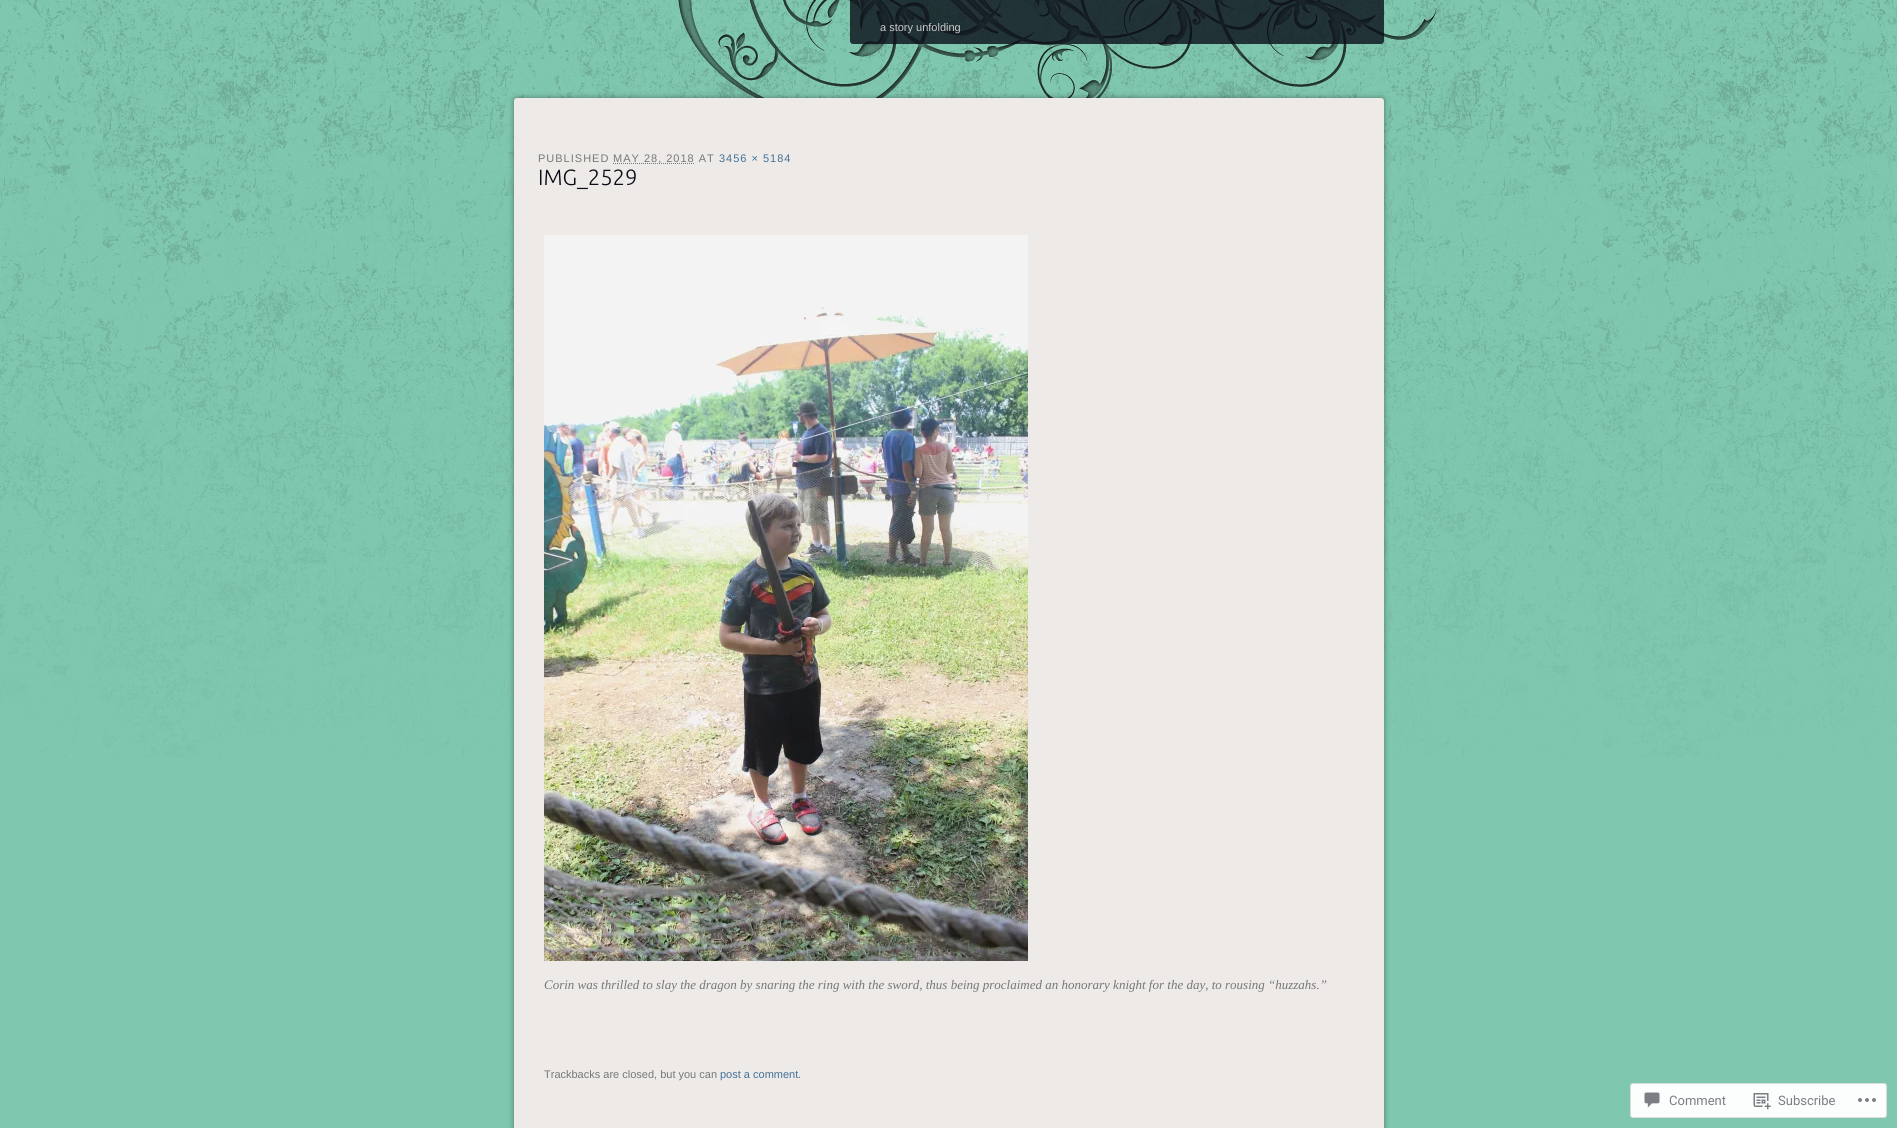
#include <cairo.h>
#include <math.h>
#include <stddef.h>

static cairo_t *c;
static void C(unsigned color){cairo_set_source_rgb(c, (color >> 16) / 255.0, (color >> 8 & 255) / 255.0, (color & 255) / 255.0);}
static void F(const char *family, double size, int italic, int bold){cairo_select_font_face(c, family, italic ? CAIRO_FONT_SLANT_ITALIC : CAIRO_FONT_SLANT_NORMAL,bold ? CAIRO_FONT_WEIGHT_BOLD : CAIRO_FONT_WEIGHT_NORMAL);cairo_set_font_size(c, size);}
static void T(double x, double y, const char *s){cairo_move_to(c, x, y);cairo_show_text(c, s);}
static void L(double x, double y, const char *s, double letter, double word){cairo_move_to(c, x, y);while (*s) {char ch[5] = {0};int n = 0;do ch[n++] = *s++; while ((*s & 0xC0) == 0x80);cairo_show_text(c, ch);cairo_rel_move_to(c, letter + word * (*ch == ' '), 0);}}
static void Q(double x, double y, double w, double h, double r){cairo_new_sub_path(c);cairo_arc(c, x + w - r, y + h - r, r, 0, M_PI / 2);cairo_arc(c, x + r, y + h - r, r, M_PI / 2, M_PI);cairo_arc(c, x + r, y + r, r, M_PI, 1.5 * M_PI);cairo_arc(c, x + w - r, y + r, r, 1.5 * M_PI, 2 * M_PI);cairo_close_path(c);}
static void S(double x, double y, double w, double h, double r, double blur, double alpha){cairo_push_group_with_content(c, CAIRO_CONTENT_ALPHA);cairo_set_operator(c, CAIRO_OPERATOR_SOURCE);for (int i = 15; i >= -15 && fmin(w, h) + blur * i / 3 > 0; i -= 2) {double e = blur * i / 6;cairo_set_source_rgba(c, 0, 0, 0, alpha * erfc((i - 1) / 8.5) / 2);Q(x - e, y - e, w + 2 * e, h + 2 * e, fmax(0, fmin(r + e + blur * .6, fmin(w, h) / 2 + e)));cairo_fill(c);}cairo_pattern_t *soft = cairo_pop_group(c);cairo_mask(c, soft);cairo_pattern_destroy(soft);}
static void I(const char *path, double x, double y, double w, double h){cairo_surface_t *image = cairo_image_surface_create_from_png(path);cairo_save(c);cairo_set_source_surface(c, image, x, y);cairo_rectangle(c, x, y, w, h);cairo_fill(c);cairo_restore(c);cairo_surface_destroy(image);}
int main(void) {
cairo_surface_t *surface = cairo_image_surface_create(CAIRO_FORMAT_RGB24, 1897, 1128);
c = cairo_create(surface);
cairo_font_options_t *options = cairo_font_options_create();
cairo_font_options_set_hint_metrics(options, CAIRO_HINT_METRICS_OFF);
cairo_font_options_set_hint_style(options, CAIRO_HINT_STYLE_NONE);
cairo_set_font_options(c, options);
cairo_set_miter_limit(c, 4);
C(0x7fc7af);
cairo_paint(c);
I("1.png",0,0,1897,757);
I("2.png",678,0,759,98);
cairo_set_source_rgba(c,0.043,0.055,0.094,0.8);
Q(850,-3,534,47,3);
cairo_fill(c);
F("Liberation Sans",11,0,0);
C(0xcccccc);
T(880,31,"a story unfolding");
C(0x000000);
S(514,98,870,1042,3,3,.4);
C(0xeeeae8);
Q(514,98,870,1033,3);
cairo_fill(c);
C(0x777777);
L(538,162,"PUBLISHED",1,0);
cairo_new_path(c);
cairo_move_to(c,613,163.5);
cairo_line_to(c,694.5,163.5);
cairo_set_line_width(c,1);
cairo_set_dash(c,(double[]){1,1},2,0);
cairo_stroke(c);
L(613,162,"MAY 28, 2018 AT",1,0);
C(0x427198);
L(719,162,"3456 × 5184",1,0);
F("Ubuntu Light",22,0,0);
C(0x0b0e18);
T(538,185,"IMG_2529");
I("3.png",544,235,484,726);
F("Liberation Serif",13,1,0);
C(0x777777);
T(544,989,"Corin was thrilled to slay the dragon by snaring the ring with the sword, thus being proclaimed an honorary knight for the day, to rousing “huzzahs.”");
F("Liberation Sans",11,0,0);
T(544,1078,"Trackbacks are closed, but you can");
C(0x427198);
T(720,1078,"post a comment");
C(0x777777);
T(798,1078,".");
C(0xfcfefd);
Q(1630.5,1083.5,256,34,2.5);
cairo_fill_preserve(c);
C(0xdadcdd);
cairo_set_dash(c,NULL,0,0);
cairo_stroke(c);
I("4.png",1644,1092,16,16);
F("Roboto",13,0,0);
C(0x787e83);
T(1669,1105,"Comment");
I("5.png",1753,1093,18,17);
T(1778,1105,"Subscribe");
I("6.png",1858,1098,18,4);
cairo_surface_write_to_png(surface, "o.png");
cairo_font_options_destroy(options);
cairo_destroy(c);
cairo_surface_destroy(surface);
return 0;
}
